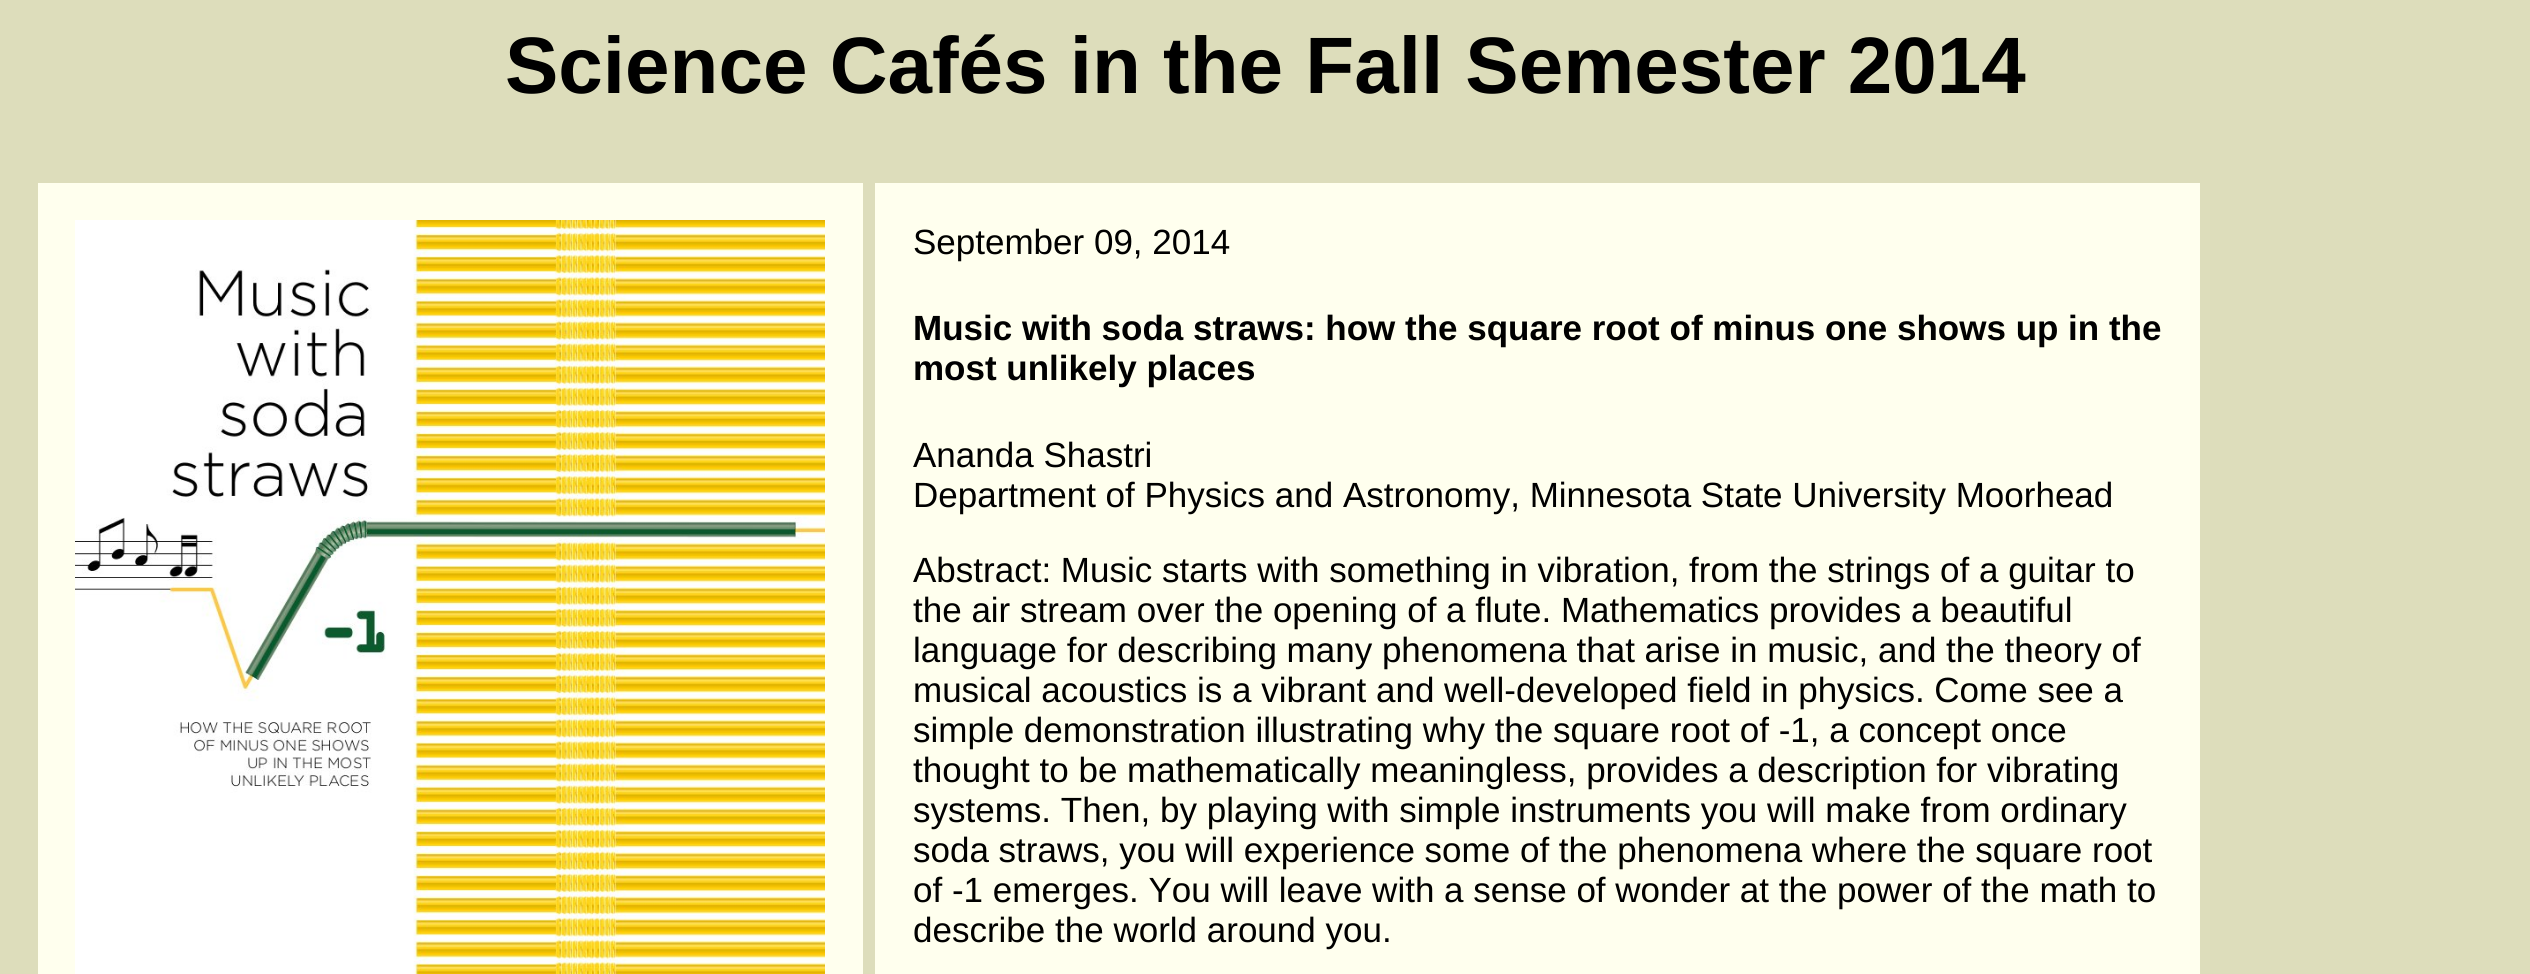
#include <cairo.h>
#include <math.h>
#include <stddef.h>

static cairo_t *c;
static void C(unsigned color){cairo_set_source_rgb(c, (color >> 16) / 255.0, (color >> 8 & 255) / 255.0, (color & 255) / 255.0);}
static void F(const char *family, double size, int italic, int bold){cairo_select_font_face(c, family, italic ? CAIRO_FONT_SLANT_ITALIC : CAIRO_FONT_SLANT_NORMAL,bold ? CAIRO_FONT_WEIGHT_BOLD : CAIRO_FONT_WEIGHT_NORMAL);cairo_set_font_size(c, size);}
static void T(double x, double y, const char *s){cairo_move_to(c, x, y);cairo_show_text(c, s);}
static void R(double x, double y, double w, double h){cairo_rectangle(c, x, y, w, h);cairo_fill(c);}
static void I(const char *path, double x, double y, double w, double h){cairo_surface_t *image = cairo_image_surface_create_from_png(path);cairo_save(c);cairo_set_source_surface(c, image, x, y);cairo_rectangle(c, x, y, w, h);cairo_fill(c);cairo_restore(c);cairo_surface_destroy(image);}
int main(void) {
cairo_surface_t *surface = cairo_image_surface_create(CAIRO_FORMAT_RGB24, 2530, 974);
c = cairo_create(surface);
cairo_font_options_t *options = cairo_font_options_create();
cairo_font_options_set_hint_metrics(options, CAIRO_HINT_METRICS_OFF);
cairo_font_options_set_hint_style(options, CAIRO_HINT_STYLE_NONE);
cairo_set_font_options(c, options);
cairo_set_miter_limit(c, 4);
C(0xddddbb);
cairo_paint(c);
F("Liberation Sans",80,0,1);
C(0x000000);
T(505,93,"Science Cafés in the Fall Semester 2014");
C(0xffffee);
R(38,183,825,791);
I("1.png",75,220,750,754);
R(875,183,1325,791);
F("Liberation Sans",35,0,0);
C(0x000000);
T(913,254,"September 09, 2014");
F("Liberation Sans",35,0,1);
T(913,340,"Music with soda straws: how the square root of minus one shows up in the");
T(913,380,"most unlikely places");
F("Liberation Sans",35,0,0);
T(913,467,"Ananda Shastri");
T(913,507,"Department of Physics and Astronomy, Minnesota State University Moorhead");
T(913,582,"Abstract: Music starts with something in vibration, from the strings of a guitar to");
T(913,622,"the air stream over the opening of a flute. Mathematics provides a beautiful");
T(913,662,"language for describing many phenomena that arise in music, and the theory of");
T(913,702,"musical acoustics is a vibrant and well-developed field in physics. Come see a");
T(913,742,"simple demonstration illustrating why the square root of -1, a concept once");
T(913,782,"thought to be mathematically meaningless, provides a description for vibrating");
T(913,822,"systems. Then, by playing with simple instruments you will make from ordinary");
T(913,862,"soda straws, you will experience some of the phenomena where the square root");
T(913,902,"of -1 emerges. You will leave with a sense of wonder at the power of the math to");
T(913,942,"describe the world around you.");
cairo_surface_write_to_png(surface, "o.png");
cairo_font_options_destroy(options);
cairo_destroy(c);
cairo_surface_destroy(surface);
return 0;
}
